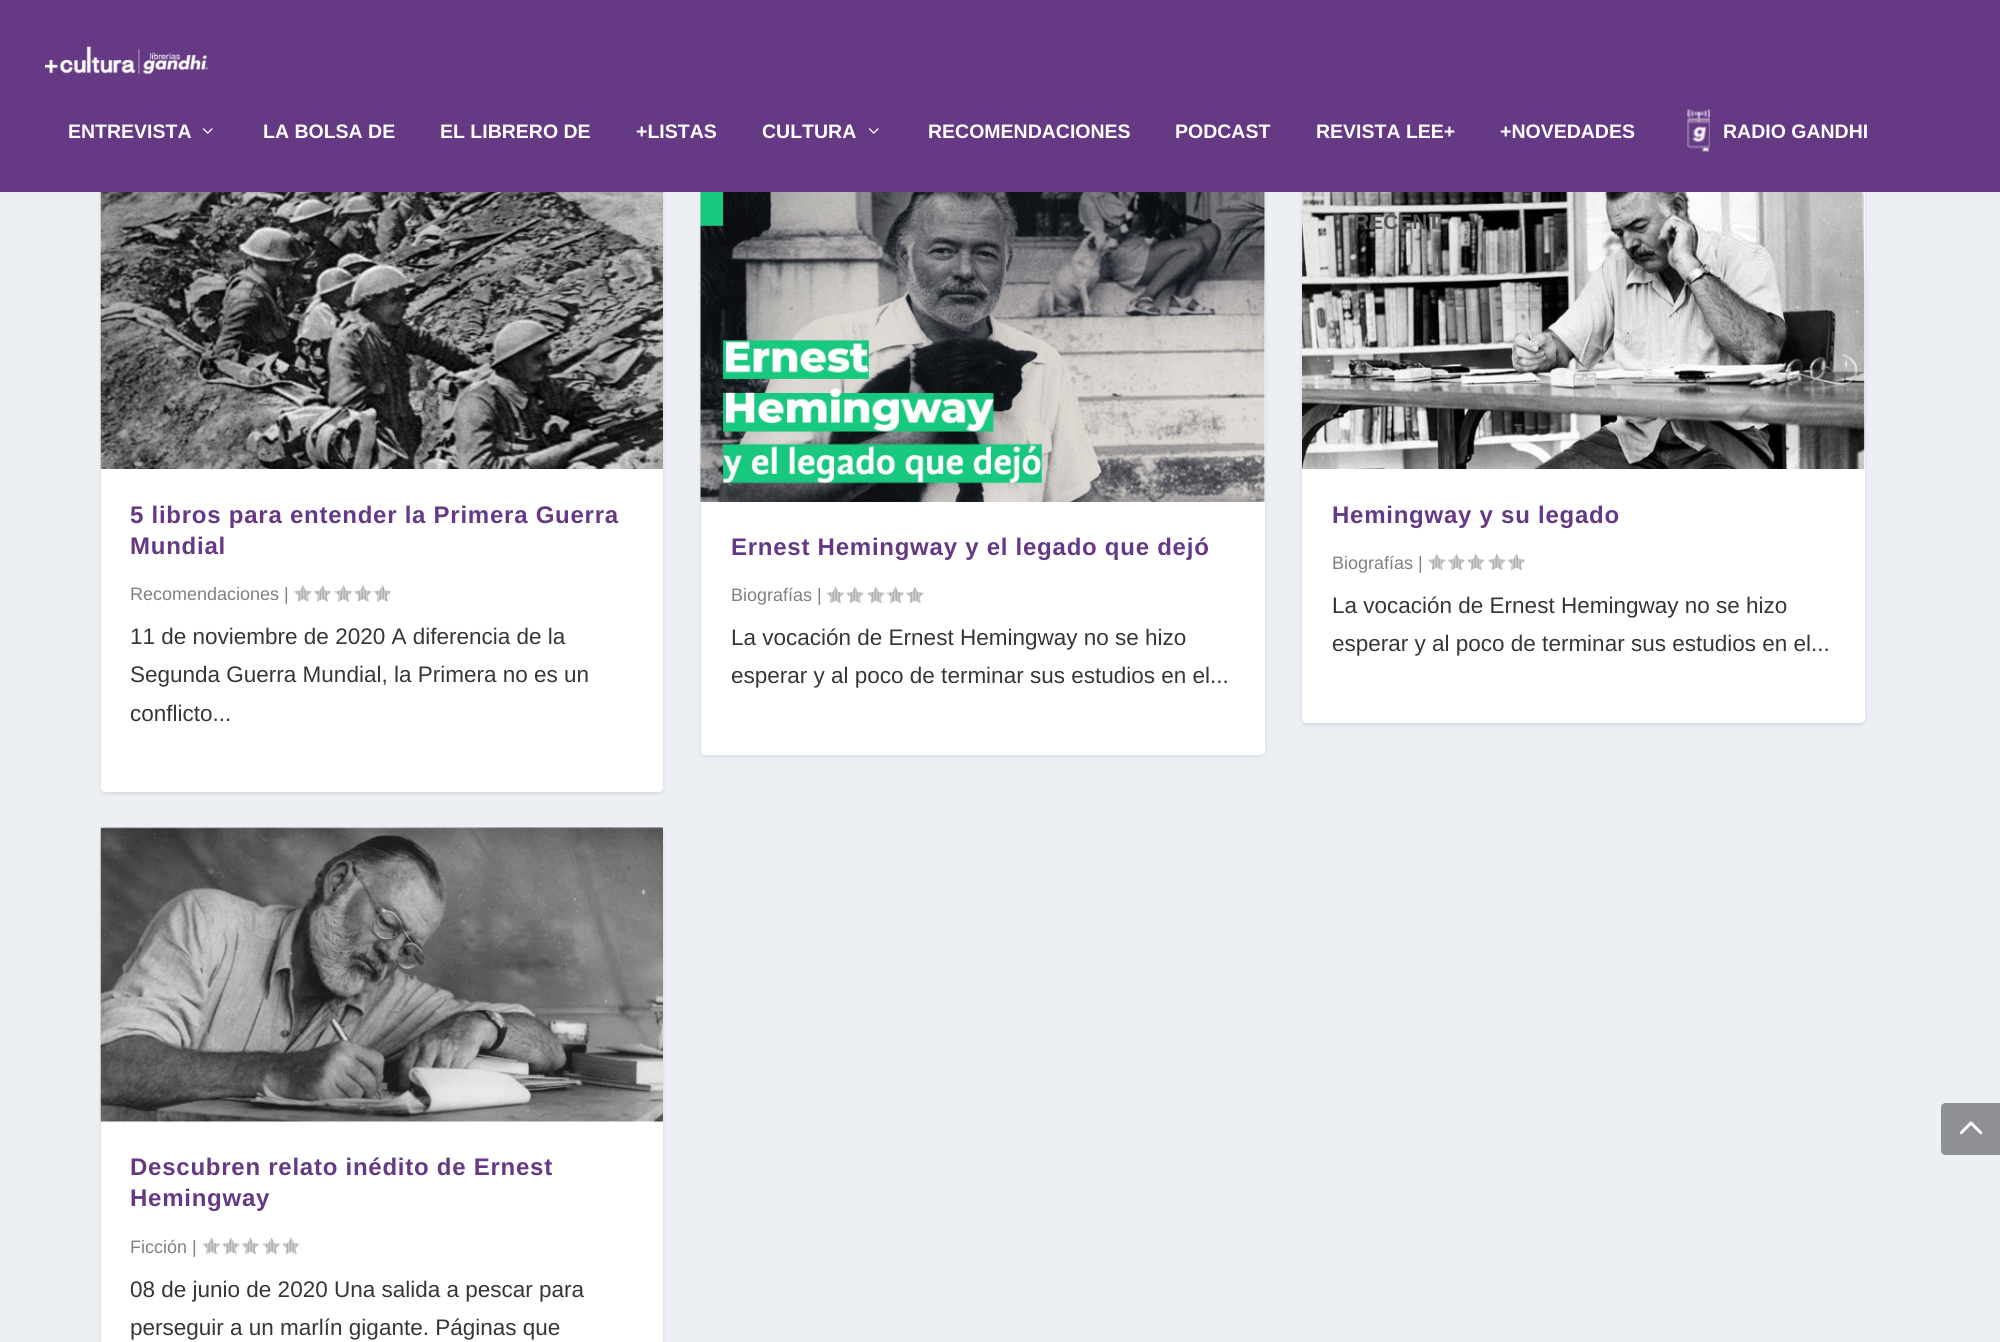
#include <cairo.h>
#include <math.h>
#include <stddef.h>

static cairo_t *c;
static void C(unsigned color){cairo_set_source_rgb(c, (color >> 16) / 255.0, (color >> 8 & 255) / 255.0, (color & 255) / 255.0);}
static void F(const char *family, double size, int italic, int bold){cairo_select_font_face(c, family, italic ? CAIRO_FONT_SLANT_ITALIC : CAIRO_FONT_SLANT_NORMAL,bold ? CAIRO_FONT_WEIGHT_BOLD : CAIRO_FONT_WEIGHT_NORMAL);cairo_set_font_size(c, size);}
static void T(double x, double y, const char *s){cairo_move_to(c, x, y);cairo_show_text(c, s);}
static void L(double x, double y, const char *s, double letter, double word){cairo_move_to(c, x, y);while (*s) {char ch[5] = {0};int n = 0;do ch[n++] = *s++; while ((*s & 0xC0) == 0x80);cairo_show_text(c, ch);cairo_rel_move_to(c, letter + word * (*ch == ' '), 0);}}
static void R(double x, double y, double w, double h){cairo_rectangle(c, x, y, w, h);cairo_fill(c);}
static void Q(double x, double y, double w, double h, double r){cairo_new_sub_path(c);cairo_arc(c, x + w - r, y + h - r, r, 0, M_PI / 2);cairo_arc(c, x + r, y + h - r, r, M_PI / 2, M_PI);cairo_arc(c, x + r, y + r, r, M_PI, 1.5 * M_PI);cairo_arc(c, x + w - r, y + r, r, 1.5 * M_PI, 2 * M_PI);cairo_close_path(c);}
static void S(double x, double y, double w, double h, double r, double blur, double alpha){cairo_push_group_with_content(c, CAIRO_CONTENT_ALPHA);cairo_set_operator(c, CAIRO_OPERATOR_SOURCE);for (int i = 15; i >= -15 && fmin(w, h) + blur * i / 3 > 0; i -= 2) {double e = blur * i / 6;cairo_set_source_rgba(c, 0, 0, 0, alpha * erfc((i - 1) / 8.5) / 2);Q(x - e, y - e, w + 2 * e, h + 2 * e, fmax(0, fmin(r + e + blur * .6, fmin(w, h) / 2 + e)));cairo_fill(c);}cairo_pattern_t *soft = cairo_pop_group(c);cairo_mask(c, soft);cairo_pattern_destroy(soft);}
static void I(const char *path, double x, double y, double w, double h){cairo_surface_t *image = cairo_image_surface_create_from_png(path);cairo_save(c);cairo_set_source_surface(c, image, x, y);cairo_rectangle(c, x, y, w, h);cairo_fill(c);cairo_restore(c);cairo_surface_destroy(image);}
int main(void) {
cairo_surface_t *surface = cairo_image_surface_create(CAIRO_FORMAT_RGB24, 2000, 1342);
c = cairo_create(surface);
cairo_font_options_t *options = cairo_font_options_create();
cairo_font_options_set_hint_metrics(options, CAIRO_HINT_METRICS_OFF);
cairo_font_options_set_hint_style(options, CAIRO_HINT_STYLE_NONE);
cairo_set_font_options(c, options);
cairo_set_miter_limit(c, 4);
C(0xecf0f5);
cairo_paint(c);
cairo_save(c);
cairo_set_fill_rule(c,CAIRO_FILL_RULE_EVEN_ODD);
cairo_new_path(c);
cairo_move_to(c,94,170);
cairo_line_to(c,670,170);
cairo_line_to(c,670,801);
cairo_line_to(c,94,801);
cairo_close_path(c);
cairo_move_to(c,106,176);
cairo_line_to(c,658,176);
cairo_curve_to(c,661,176,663,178,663,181);
cairo_line_to(c,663,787);
cairo_curve_to(c,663,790,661,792,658,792);
cairo_line_to(c,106,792);
cairo_curve_to(c,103,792,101,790,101,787);
cairo_line_to(c,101,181);
cairo_curve_to(c,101,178,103,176,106,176);
cairo_close_path(c);
cairo_clip(c);
C(0x000000);
S(101,177,562,617,5,2,.1);
cairo_restore(c);
C(0xffffff);
Q(101,176,562,616,5);
cairo_fill(c);
C(0x000000);
S(701,177,564,579,5,2,.1);
C(0xffffff);
Q(701,176,564,579,5);
cairo_fill(c);
C(0x000000);
S(1302,177,563,548,5,2,.1);
C(0xffffff);
Q(1302,176,563,547,5);
cairo_fill(c);
C(0x653984);
R(0,0,2000,192);
I("1.png",45,46,163,29);
F("Liberation Sans",19.5,0,1);
C(0xffffff);
T(68,138,"ENTREVISTA");
I("2.png",202,128,11,6);
I("11.png",1302,192,563,277);
F("Liberation Sans",21,0,1);
C(0x575757);
T(1354,229,"RECENT");
F("Liberation Sans",19.5,0,1);
C(0xffffff);
T(263,138,"LA BOLSA DE");
T(440,138,"EL LIBRERO DE");
T(636,138,"+LISTAS");
T(762,138,"CULTURA");
I("2.png",868,128,11,6);
T(928,138,"RECOMENDACIONES");
T(1175,138,"PODCAST");
T(1316,138,"REVISTA LEE+");
T(1500,138,"+NOVEDADES");
I("3.png",1687,109,23,43);
T(1723,138,"RADIO GANDHI");
I("4.png",100,192,563,277);
F("Liberation Sans",24,0,1);
C(0x653984);
L(130,523,"5 libros para entender la Primera Guerra",.75,0);
L(130,554,"Mundial",.75,0);
F("Liberation Sans",18,0,0);
C(0x808080);
T(130,600,"Recomendaciones |");
I("5.png",294,585,18,17);
I("6.png",313,585,19,17);
I("6.png",334,585,19,17);
I("5.png",354,585,18,17);
I("6.png",373,585,19,17);
F("Liberation Sans",22.5,0,0);
C(0x363636);
T(130,644,"11 de noviembre de 2020 A diferencia de la");
T(130,682,"Segunda Guerra Mundial, la Primera no es un");
T(130,721,"conflicto...");
C(0x000000);
S(101,830,562,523,5,2,.1);
C(0xffffff);
R(101,1121,562,221);
I("7.png",100,827,563,295);
F("Liberation Sans",24,0,1);
C(0x653984);
L(130,1175,"Descubren relato inédito de Ernest",.75,0);
L(130,1206,"Hemingway",.75,0);
F("Liberation Sans",18,0,0);
C(0x808080);
T(130,1253,"Ficción |");
I("8.png",202,1237,19,18);
I("9.png",222,1237,18,18);
I("8.png",241,1237,19,18);
I("8.png",262,1237,19,18);
I("9.png",282,1237,18,18);
F("Liberation Sans",22.5,0,0);
C(0x363636);
T(130,1297,"08 de junio de 2020 Una salida a pescar para");
T(130,1335,"perseguir a un marlín gigante. Páginas que");
I("10.png",700,192,565,310);
F("Liberation Sans",24,0,1);
C(0x653984);
L(731,555,"Ernest Hemingway y el legado que dejó",.75,0);
F("Liberation Sans",18,0,0);
C(0x808080);
T(731,601,"Biografías |");
I("8.png",826,586,19,18);
I("9.png",846,586,18,18);
I("9.png",867,586,18,18);
I("8.png",886,586,19,18);
I("9.png",906,586,18,18);
F("Liberation Sans",22.5,0,0);
C(0x363636);
T(731,645,"La vocación de Ernest Hemingway no se hizo");
T(731,683,"esperar y al poco de terminar sus estudios en el...");
F("Liberation Sans",24,0,1);
C(0x653984);
L(1332,523,"Hemingway y su legado",.75,0);
F("Liberation Sans",18,0,0);
C(0x808080);
T(1332,569,"Biografías |");
I("9.png",1428,553,18,18);
I("8.png",1447,553,19,18);
I("9.png",1467,553,18,18);
I("9.png",1488,553,18,18);
I("8.png",1507,553,19,18);
F("Liberation Sans",22.5,0,0);
C(0x363636);
T(1332,613,"La vocación de Ernest Hemingway no se hizo");
T(1332,651,"esperar y al poco de terminar sus estudios en el...");
C(0x8e9093);
cairo_new_path(c);
cairo_move_to(c,1946,1103);
cairo_line_to(c,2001,1103);
cairo_line_to(c,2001,1155);
cairo_line_to(c,1946,1155);
cairo_curve_to(c,1943,1155,1941,1153,1941,1150);
cairo_line_to(c,1941,1108);
cairo_curve_to(c,1941,1105,1943,1103,1946,1103);
cairo_close_path(c);
cairo_fill(c);
I("12.png",1959,1121,24,14);
cairo_surface_write_to_png(surface, "o.png");
cairo_font_options_destroy(options);
cairo_destroy(c);
cairo_surface_destroy(surface);
return 0;
}
